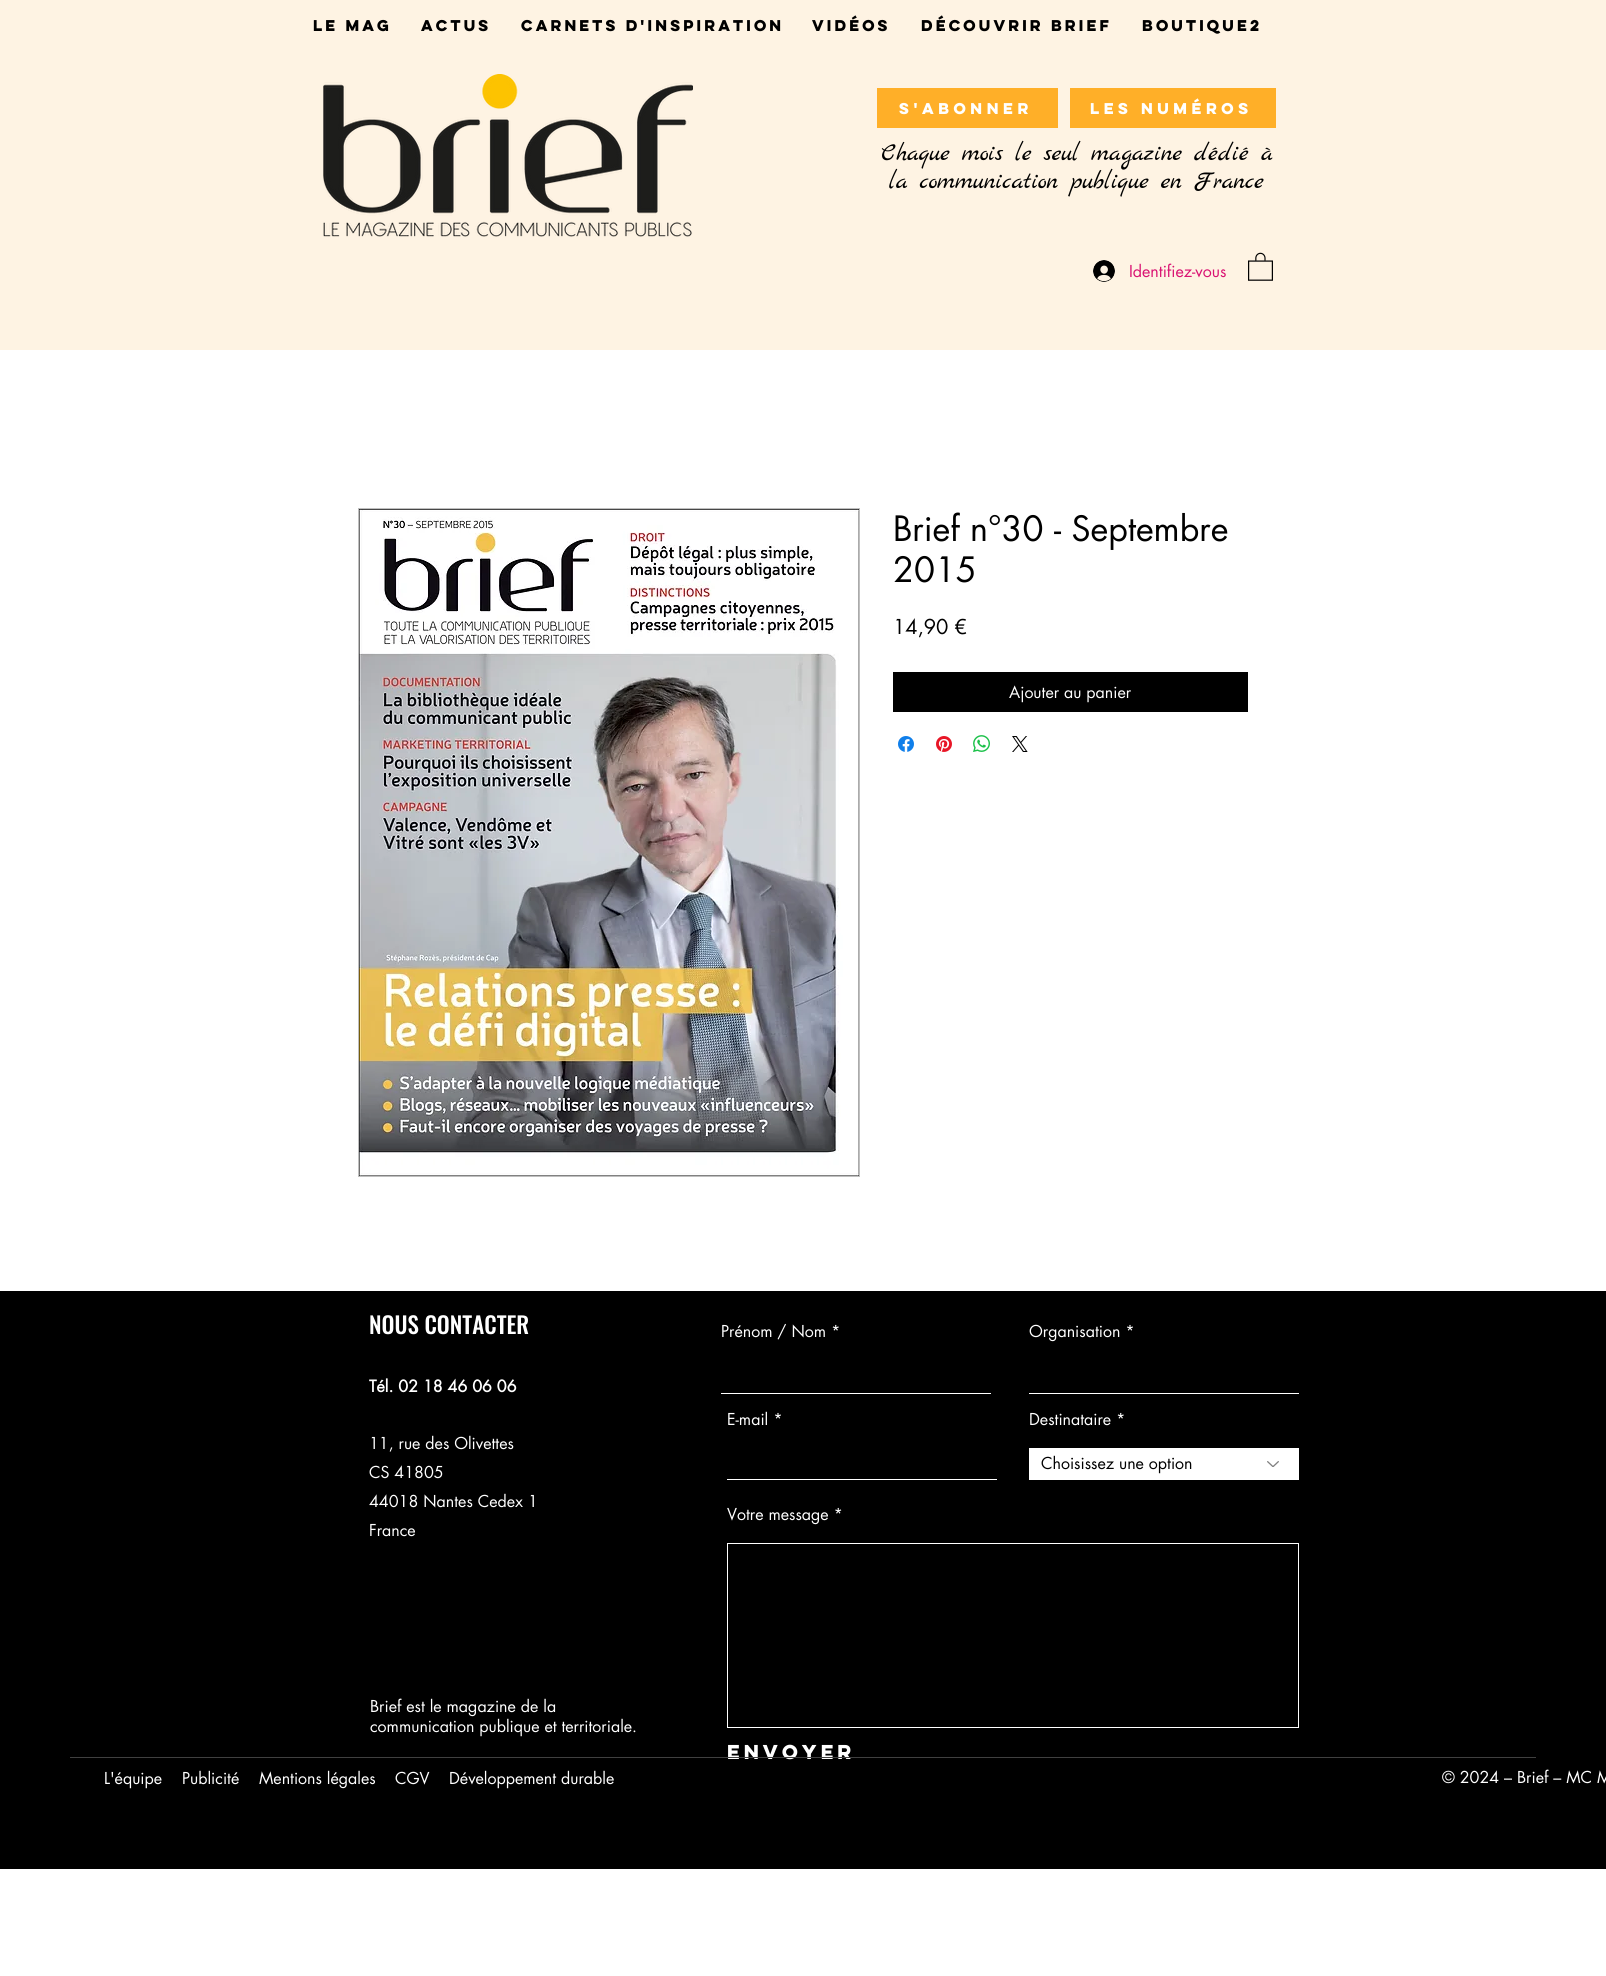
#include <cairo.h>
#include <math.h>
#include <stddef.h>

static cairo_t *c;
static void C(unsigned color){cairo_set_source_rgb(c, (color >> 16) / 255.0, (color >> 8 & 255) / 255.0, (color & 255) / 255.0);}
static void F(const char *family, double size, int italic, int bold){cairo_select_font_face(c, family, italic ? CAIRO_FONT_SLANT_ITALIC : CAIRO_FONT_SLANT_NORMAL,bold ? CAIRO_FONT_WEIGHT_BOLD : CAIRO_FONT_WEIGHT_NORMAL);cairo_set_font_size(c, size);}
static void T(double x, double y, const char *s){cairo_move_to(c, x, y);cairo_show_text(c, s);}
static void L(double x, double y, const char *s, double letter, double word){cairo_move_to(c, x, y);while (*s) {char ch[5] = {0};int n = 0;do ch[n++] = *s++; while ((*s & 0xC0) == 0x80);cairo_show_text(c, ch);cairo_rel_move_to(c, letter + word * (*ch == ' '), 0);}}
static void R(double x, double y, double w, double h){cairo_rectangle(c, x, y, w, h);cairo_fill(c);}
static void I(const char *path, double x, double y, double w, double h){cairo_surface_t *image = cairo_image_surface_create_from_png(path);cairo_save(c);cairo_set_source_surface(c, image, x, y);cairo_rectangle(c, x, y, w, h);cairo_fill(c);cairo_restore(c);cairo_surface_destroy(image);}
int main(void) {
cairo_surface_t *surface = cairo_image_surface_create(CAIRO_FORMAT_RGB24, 1606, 1976);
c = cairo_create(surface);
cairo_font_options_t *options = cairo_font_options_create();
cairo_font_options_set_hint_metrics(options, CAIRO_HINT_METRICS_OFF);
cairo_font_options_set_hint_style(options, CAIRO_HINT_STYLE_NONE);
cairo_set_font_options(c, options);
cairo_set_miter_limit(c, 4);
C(0xffffff);
cairo_paint(c);
C(0xfef3e3);
R(0,0,1606,350);
F("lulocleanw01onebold",14,0,1);
C(0x000000);
T(313,31,"LE MAG");
T(421,31,"ACTUS");
T(521,31,"CARNETS D'INSPIRATION");
T(812,31,"VIDÉOS");
T(921,31,"DÉCOUVRIR BRIEF");
T(1142,31,"BOUTIQUE2");
I("1.png",323,74,370,163);
C(0xffaf28);
R(877,88,181,40);
C(0xffffff);
L(899,114,"S'ABONNER",1.4,0);
C(0xffaf28);
R(1070,88,206,40);
C(0xffffff);
L(1090,114,"LES NUMÉROS",1.4,0);
F("Marck Script",25,0,0);
C(0x000000);
T(881,160,"Chaque mois le seul magazine dédié à");
T(889,188,"la communication publique en France");
I("2.png",1093,260,22,22);
F("futura",16,0,0);
C(0xd91272);
T(1129,277,"Identifiez-vous");
I("3.png",1248,252,25,29);
cairo_rectangle(c,358.5,508.5,501,668);
C(0xbfbfbf);
cairo_set_line_width(c,1);
cairo_stroke(c);
I("4.png",359,509,500,667);
F("futura",34,0,0);
C(0x000000);
T(893,541,"Brief n°30 - Septembre");
T(893,582,"2015");
F("futura",20,0,0);
T(893,634,"14,90 €");
R(893,672,355,40);
F("futura",16,0,0);
C(0xffffff);
T(1009,698,"Ajouter au panier");
I("5.png",898,736,16,16);
I("6.png",936,736,16,16);
I("7.png",973,735,17,17);
I("8.png",1012,736,16,16);
C(0x000000);
R(0,1291,1606,578);
F("Oswald Medium",23,0,0);
C(0xffffff);
T(369,1334,"NOUS CONTACTER");
F("futura",16,0,0);
T(721,1337,"Prénom / Nom *");
R(721,1393,270,1);
T(1029,1337,"Organisation *");
R(1029,1393,270,1);
T(727,1425,"E-mail *");
R(727,1479,270,1);
T(1029,1425,"Destinataire *");
R(1029,1448,270,32);
C(0x000000);
T(1041,1469,"Choisissez une option");
I("9.png",1267,1461,12,6);
C(0xffffff);
T(727,1520,"Votre message *");
cairo_rectangle(c,727.5,1543.5,571,184);
cairo_stroke(c);
F("lulocleanw01onebold",18,0,1);
T(727,1759,"Envoyer");
F("futura",16,0,1);
T(369,1392,"Tél. 02 18 46 06 06");
F("futura",16,0,0);
T(369,1449,"11, rue des Olivettes");
T(369,1478,"CS 41805");
T(369,1507,"44018 Nantes Cedex 1");
T(369,1536,"France");
T(370,1712,"Brief est le magazine de la");
T(370,1732,"communication publique et territoriale.");
C(0x404040);
R(70,1757,1466,1);
C(0xffffff);
T(104,1784,"L'équipe");
T(182,1784,"Publicité");
T(259,1784,"Mentions légales");
T(395,1784,"CGV");
T(449,1784,"Développement durable");
T(1442,1783,"© 2024 – Brief – MC M");
cairo_surface_write_to_png(surface, "o.png");
cairo_font_options_destroy(options);
cairo_destroy(c);
cairo_surface_destroy(surface);
return 0;
}
